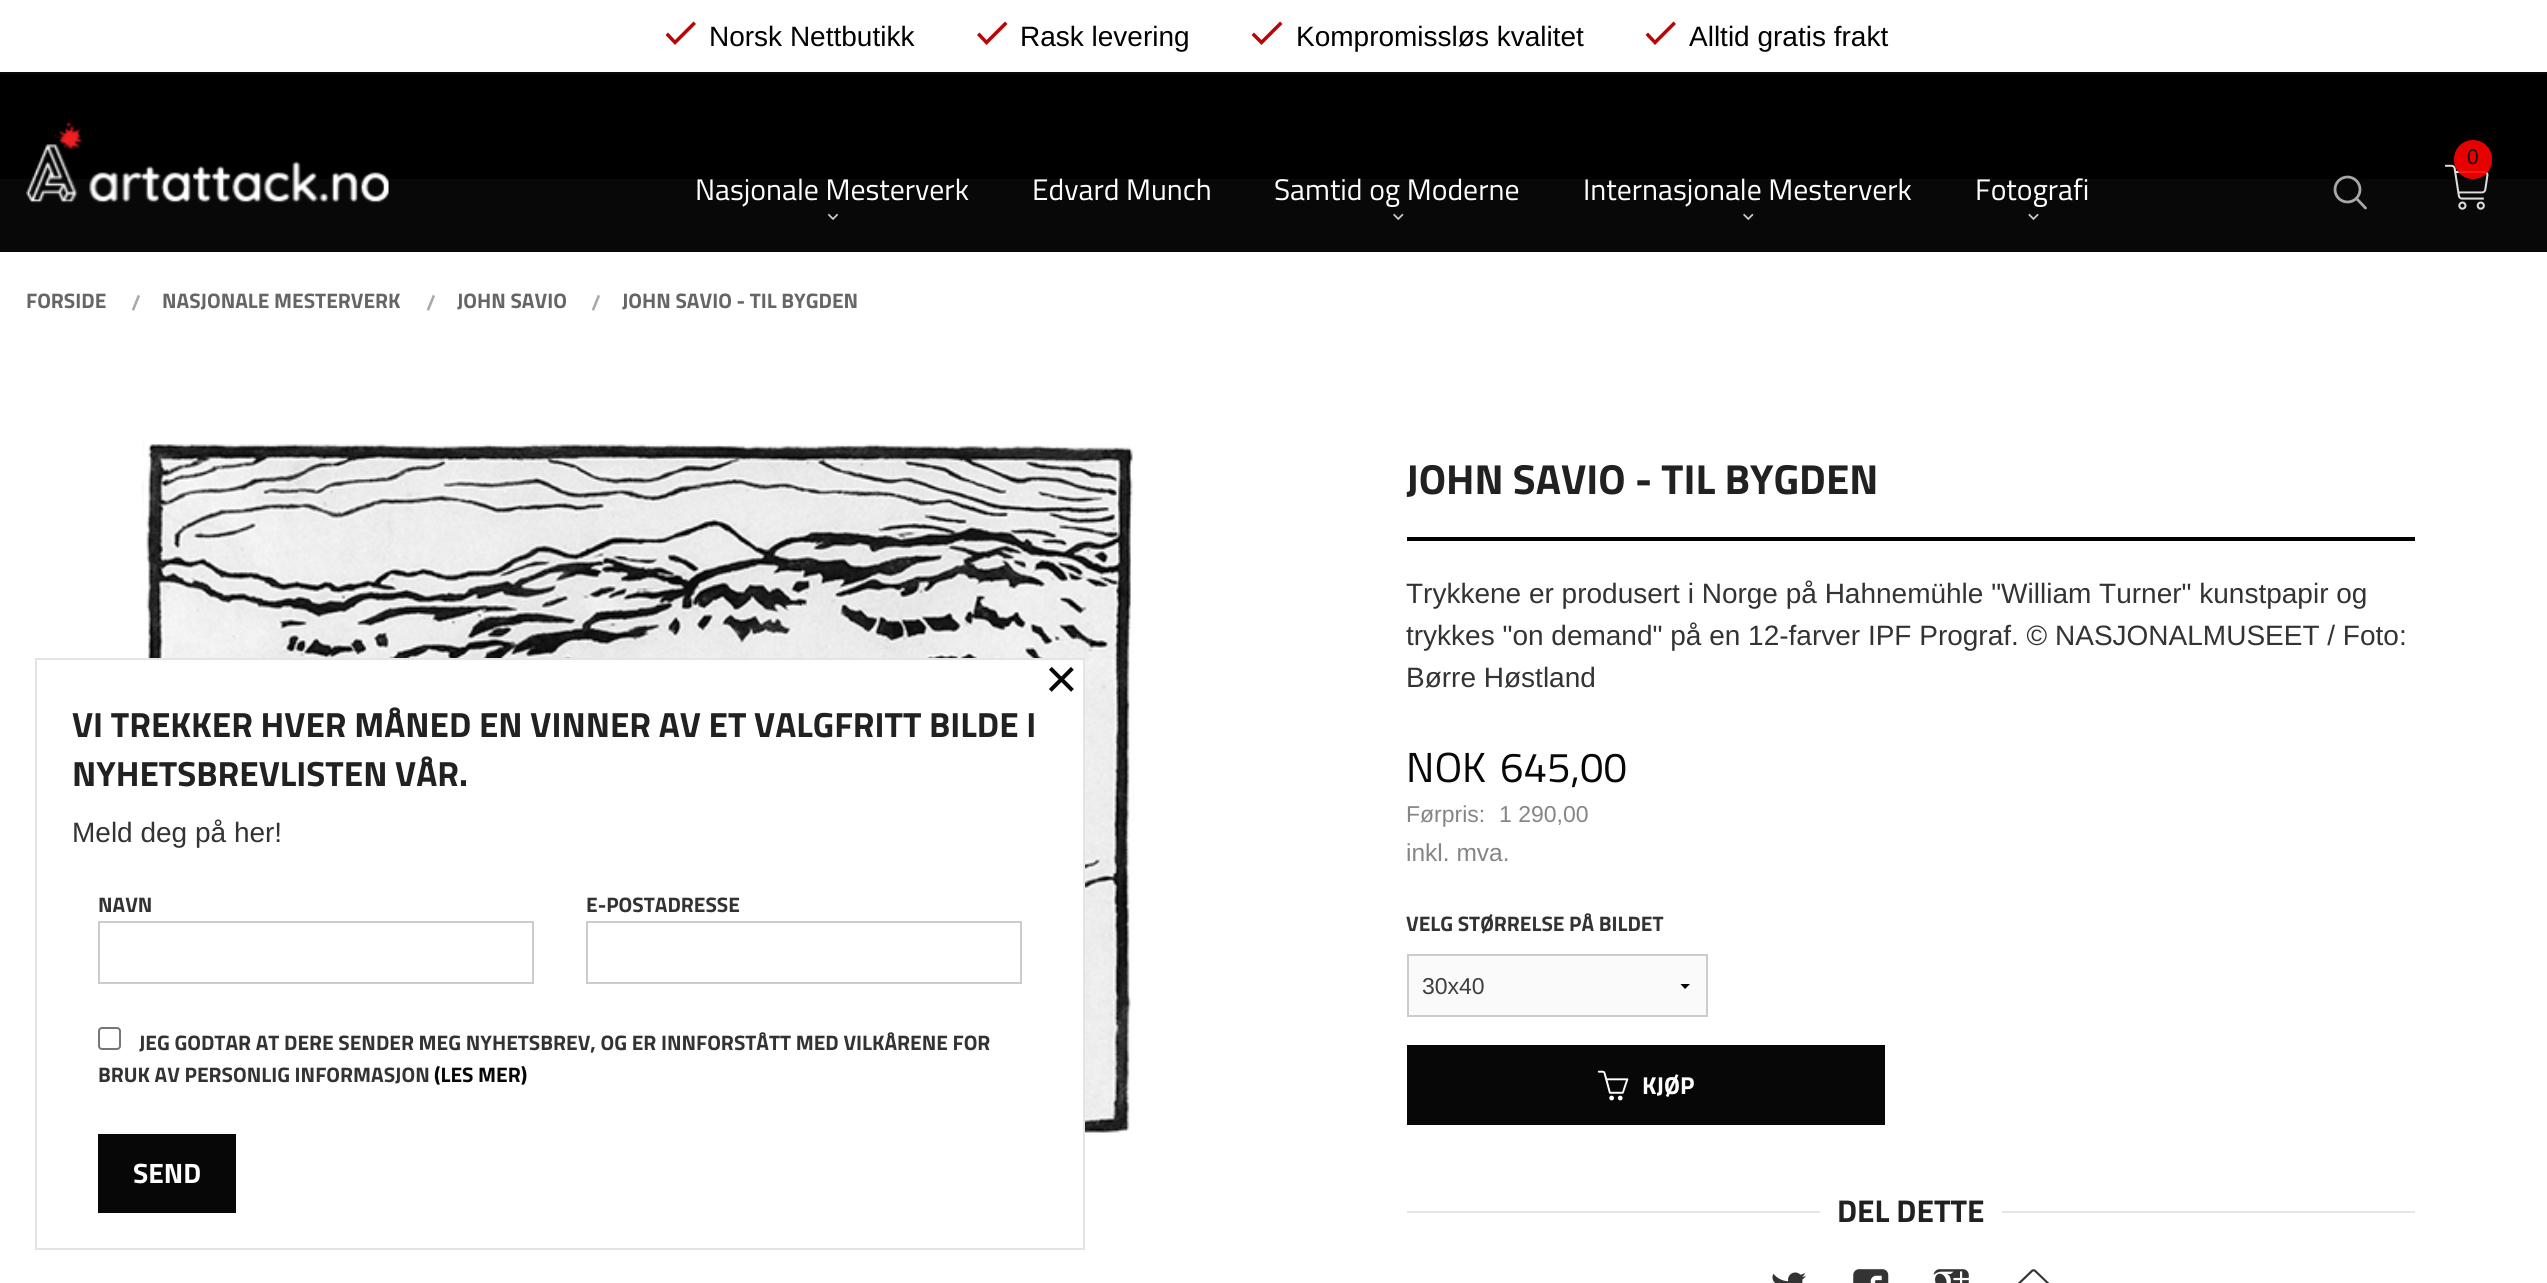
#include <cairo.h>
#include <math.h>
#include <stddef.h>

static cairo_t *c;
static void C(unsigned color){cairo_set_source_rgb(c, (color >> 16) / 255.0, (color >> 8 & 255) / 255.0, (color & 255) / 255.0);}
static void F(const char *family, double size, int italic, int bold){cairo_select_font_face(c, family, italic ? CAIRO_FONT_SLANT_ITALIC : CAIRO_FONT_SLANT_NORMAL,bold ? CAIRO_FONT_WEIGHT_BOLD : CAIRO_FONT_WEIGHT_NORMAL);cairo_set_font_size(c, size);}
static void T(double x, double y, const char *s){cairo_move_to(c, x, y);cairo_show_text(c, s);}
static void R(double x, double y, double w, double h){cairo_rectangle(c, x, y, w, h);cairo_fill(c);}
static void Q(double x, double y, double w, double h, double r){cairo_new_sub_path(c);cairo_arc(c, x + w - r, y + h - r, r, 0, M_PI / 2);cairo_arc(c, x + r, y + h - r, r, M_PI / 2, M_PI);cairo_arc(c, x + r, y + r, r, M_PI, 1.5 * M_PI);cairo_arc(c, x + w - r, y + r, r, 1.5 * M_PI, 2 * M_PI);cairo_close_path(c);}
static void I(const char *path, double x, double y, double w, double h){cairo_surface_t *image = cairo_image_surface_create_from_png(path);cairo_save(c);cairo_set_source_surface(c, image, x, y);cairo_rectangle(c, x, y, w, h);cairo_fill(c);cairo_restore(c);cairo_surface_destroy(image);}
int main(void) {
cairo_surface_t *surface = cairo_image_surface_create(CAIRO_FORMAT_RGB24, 2547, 1283);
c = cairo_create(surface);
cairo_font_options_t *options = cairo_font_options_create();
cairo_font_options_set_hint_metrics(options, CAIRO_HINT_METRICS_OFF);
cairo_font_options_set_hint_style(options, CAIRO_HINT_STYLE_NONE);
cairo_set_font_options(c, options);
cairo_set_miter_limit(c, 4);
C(0xffffff);
cairo_paint(c);
C(0x0a0a0a);
R(0,72,2547,2);
C(0xb90506);
cairo_new_path(c);
cairo_move_to(c,675,40);
cairo_line_to(c,668,32.5);
cairo_line_to(c,665.5,35);
cairo_line_to(c,675,45);
cairo_line_to(c,696,24);
cairo_line_to(c,693.5,21.5);
cairo_close_path(c);
cairo_fill(c);
F("Liberation Sans",28,0,0);
C(0x000000);
T(709,46,"Norsk Nettbutikk");
C(0xb90506);
cairo_new_path(c);
cairo_move_to(c,986.5,40);
cairo_line_to(c,979.5,32.5);
cairo_line_to(c,977,35);
cairo_line_to(c,986.5,45);
cairo_line_to(c,1007.5,24);
cairo_line_to(c,1005,21.5);
cairo_close_path(c);
cairo_fill(c);
C(0x000000);
T(1020,46,"Rask levering");
C(0xb90506);
cairo_new_path(c);
cairo_move_to(c,1261.5,40);
cairo_line_to(c,1254,32.5);
cairo_line_to(c,1251.5,35);
cairo_line_to(c,1261.5,45);
cairo_line_to(c,1282.5,24);
cairo_line_to(c,1280,21.5);
cairo_close_path(c);
cairo_fill(c);
C(0x000000);
T(1296,46,"Kompromissløs kvalitet");
C(0xb90506);
cairo_new_path(c);
cairo_move_to(c,1655,40);
cairo_line_to(c,1648,32.5);
cairo_line_to(c,1645.5,35);
cairo_line_to(c,1655,45);
cairo_line_to(c,1676,24);
cairo_line_to(c,1673.5,21.5);
cairo_close_path(c);
cairo_fill(c);
C(0x000000);
T(1689,46,"Alltid gratis frakt");
R(0,74,2547,105);
C(0x080808);
R(0,179,2547,73);
I("1.png",26,122,363,81);
F("Titillium Web",29.75,0,0);
C(0xffffff);
T(695,200,"Nasjonale Mesterverk");
I("2.png",827,213,12,7);
T(1032,200,"Edvard Munch");
T(1274,200,"Samtid og Moderne");
I("3.png",1393,213,11,8);
T(1583,200,"Internasjonale Mesterverk");
I("3.png",1743,213,11,8);
T(1975,200,"Fotografi");
I("4.png",2028,213,11,8);
cairo_arc(c,2347.5,189.5,12.5,0,2 * M_PI);
cairo_set_source_rgba(c,0.867,0.867,0.867,0.75);
cairo_set_line_width(c,2.8);
cairo_stroke(c);
cairo_new_path(c);
cairo_move_to(c,2365.5,208);
cairo_line_to(c,2356.5,198.5);
C(0xa8a8a8);
cairo_set_line_cap(c,CAIRO_LINE_CAP_ROUND);
cairo_stroke(c);
I("5.png",2445,164,44,46);
cairo_set_source_rgba(c,1,0,0,0.9);
Q(2454,140,38,39,19);
cairo_fill(c);
F("Liberation Sans",21,0,0);
C(0x121212);
T(2467,164,"0");
F("Titillium Web",21,0,1);
C(0x666666);
T(26,308,"FORSIDE");
C(0xaaaaaa);
T(131,310,"/");
C(0x666666);
T(162,308,"NASJONALE MESTERVERK");
C(0xaaaaaa);
T(426,310,"/");
C(0x666666);
T(457,308,"JOHN SAVIO");
C(0xaaaaaa);
T(591,310,"/");
C(0x666666);
T(622,308,"JOHN SAVIO - TIL BYGDEN");
I("6.png",142,441,992,695);
C(0x000000);
R(1407,537,1008,4);
F("Titillium Web",42,0,1);
C(0x212121);
T(1406,494,"JOHN SAVIO - TIL BYGDEN");
F("Liberation Sans",28,0,0);
C(0x333333);
T(1406,603,"Trykkene er produsert i Norge på Hahnemühle \"William Turner\" kunstpapir og");
T(1406,645,"trykkes \"on demand\" på en 12-farver IPF Prograf. © NASJONALMUSEET / Foto:");
T(1406,687,"Børre Høstland");
F("Titillium Web",42,0,0);
C(0x070707);
T(1406,782,"NOK");
T(1500,782,"645,00");
F("Liberation Sans",23,0,0);
C(0x858585);
T(1406,822,"Førpris:");
T(1499,822,"1 290,00");
F("Liberation Sans",24.5,0,0);
T(1406,861,"inkl. mva.");
F("Titillium Web",21,0,1);
C(0x333333);
T(1406,931,"VELG STØRRELSE PÅ BILDET");
C(0xfafafa);
R(1409,956,297,59);
cairo_save(c);
cairo_rectangle(c,1664,984,42,5);
cairo_clip(c);
C(0x000000);
cairo_new_path(c);
cairo_move_to(c,1690.5,983.5);
cairo_line_to(c,1685,989);
cairo_line_to(c,1680,983.5);
cairo_close_path(c);
cairo_fill(c);
cairo_restore(c);
cairo_rectangle(c,1408,955,299,61);
C(0xcccccc);
cairo_set_line_width(c,2);
cairo_set_line_cap(c,CAIRO_LINE_CAP_BUTT);
cairo_stroke(c);
F("Liberation Sans",23,0,0);
C(0x3f3f3f);
T(1422,994,"30x40");
C(0x070707);
R(1407,1045,478,80);
I("7.png",1597,1070,32,31);
F("Titillium Web",24.5,0,1);
C(0xffffff);
T(1642,1094,"KJØP");
C(0xe6e6e6);
R(1407,1211,1008,2);
C(0xffffff);
R(1820,1211,182,2);
F("Titillium Web",31.5,0,1);
C(0x212121);
T(1837,1222,"DEL DETTE");
I("8.png",1772,1272,34,11);
I("9.png",1853,1269,36,14);
I("10.png",1933,1269,36,14);
I("11.png",2018,1269,32,14);
C(0xffffff);
R(142,660,941,476);
cairo_rectangle(c,36,659,1048,590);
C(0xe4e4e4);
cairo_stroke(c);
F("Liberation Sans",56,0,0);
C(0x070707);
T(1045,698,"×");
F("Titillium Web",35,0,1);
C(0x212121);
T(72,737,"VI TREKKER HVER MÅNED EN VINNER AV ET VALGFRITT BILDE I");
T(72,786,"NYHETSBREVLISTEN VÅR.");
F("Liberation Sans",28,0,0);
C(0x333333);
T(72,842,"Meld deg på her!");
F("Titillium Web",21,0,1);
T(98,912,"NAVN");
cairo_rectangle(c,99,922,434,61);
C(0xcccccc);
cairo_stroke(c);
C(0x333333);
T(586,912,"E-POSTADRESSE");
cairo_rectangle(c,587,922,434,61);
C(0xcccccc);
cairo_stroke(c);
Q(99,1028,21,21,3);
C(0x767676);
cairo_stroke(c);
C(0x333333);
T(139,1050,"JEG GODTAR AT DERE SENDER MEG NYHETSBREV, OG ER INNFORSTÅTT MED VILKÅRENE FOR");
T(98,1082,"BRUK AV PERSONLIG INFORMASJON");
C(0x070707);
T(434,1082,"(LES MER)");
R(98,1134,138,79);
F("Titillium Web",28,0,1);
C(0xffffff);
T(133,1183,"SEND");
cairo_surface_write_to_png(surface, "o.png");
cairo_font_options_destroy(options);
cairo_destroy(c);
cairo_surface_destroy(surface);
return 0;
}
